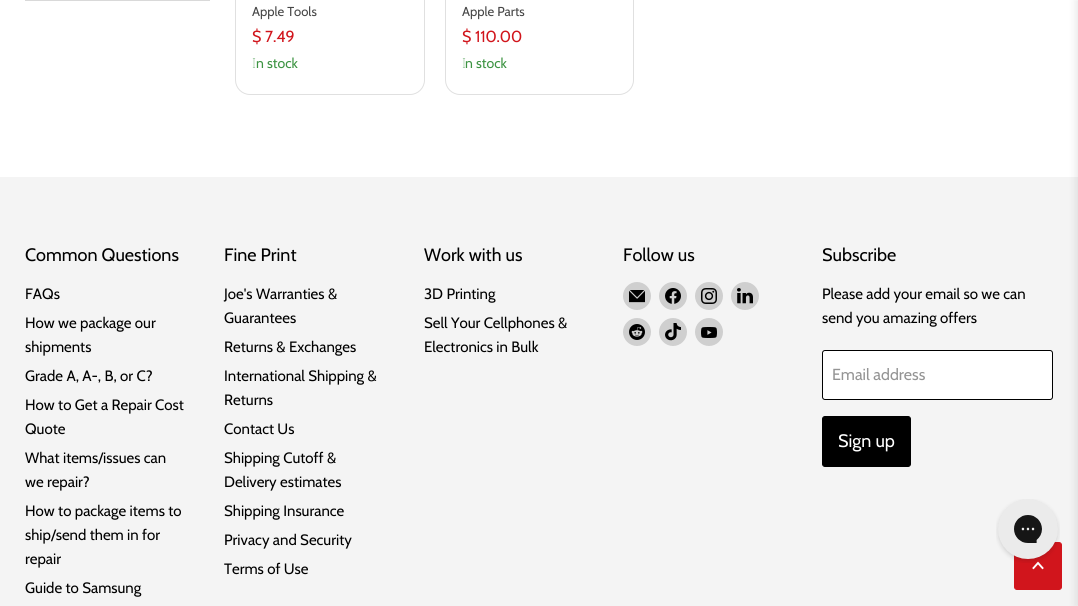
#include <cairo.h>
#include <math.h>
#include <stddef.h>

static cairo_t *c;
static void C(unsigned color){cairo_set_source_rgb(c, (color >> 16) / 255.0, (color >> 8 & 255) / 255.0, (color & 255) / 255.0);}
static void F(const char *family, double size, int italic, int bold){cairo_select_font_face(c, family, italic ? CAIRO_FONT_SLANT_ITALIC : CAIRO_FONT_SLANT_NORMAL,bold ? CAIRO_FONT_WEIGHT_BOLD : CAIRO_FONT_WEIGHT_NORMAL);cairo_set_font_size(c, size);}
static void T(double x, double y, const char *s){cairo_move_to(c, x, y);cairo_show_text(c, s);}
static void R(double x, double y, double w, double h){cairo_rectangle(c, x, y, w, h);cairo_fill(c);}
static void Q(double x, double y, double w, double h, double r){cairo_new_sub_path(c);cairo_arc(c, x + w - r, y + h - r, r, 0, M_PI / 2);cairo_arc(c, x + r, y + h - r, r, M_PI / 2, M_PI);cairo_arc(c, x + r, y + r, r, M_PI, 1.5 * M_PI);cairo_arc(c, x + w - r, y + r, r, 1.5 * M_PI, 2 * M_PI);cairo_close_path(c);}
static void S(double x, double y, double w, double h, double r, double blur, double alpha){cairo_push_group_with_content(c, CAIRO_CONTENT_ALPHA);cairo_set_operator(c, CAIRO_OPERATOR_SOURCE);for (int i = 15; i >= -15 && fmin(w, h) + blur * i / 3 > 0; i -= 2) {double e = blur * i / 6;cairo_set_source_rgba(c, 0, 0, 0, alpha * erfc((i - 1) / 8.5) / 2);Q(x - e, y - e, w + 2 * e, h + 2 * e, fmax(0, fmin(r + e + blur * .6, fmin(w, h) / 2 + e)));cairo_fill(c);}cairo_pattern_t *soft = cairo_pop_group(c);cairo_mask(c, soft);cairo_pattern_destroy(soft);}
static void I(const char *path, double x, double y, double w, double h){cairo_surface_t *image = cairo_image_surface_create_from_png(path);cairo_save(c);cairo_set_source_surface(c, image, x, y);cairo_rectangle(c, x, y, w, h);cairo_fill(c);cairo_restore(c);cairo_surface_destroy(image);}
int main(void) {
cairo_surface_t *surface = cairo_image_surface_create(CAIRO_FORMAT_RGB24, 1078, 606);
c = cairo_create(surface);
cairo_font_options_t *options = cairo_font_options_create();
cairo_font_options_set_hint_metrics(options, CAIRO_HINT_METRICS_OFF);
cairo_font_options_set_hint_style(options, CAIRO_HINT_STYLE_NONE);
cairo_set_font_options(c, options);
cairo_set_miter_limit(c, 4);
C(0xffffff);
cairo_paint(c);
C(0xd9d9d9);
R(25,0,185,1);
Q(235.5,-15.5,189,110,14.5);
C(0xe0e0e0);
cairo_set_line_width(c,1);
cairo_stroke(c);
F("Cabin",13,0,0);
C(0x464646);
T(252,16,"Apple Tools");
F("Cabin",16,0,0);
C(0xd1151c);
T(252,42,"$ 7.49");
F("Noto Sans Thin",14,0,0);
C(0x3c9342);
T(252,68,"I");
F("Cabin",14,0,0);
T(256,68,"n stock");
Q(445.5,-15.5,188,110,14.5);
C(0xe0e0e0);
cairo_stroke(c);
F("Cabin",13,0,0);
C(0x464646);
T(462,16,"Apple Parts");
F("Cabin",16,0,0);
C(0xd1151c);
T(462,42,"$ 110.00");
F("Noto Sans Thin",14,0,0);
C(0x3c9342);
T(462,68,"I");
F("Cabin",14,0,0);
T(465,68,"n stock");
C(0xf4f4f4);
R(0,177,1078,429);
C(0x000000);
S(1076,0,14,606,0,4,.1);
F("Cabin",18,0,0);
C(0x000000);
T(25,261,"Common Questions");
F("Cabin",15,0,0);
T(25,299,"FAQs");
T(25,328,"How we package our");
T(25,352,"shipments");
T(25,381,"Grade A, A-, B, or C?");
T(25,410,"How to Get a Repair Cost");
T(25,434,"Quote");
T(25,463,"What items/issues can");
T(25,487,"we repair?");
T(25,516,"How to package items to");
T(25,540,"ship/send them in for");
T(25,564,"repair");
T(25,593,"Guide to Samsung");
F("Cabin",18,0,0);
T(224,261,"Fine Print");
F("Cabin",15,0,0);
T(224,299,"Joe's Warranties &");
T(224,323,"Guarantees");
T(224,352,"Returns & Exchanges");
T(224,381,"International Shipping &");
T(224,405,"Returns");
T(224,434,"Contact Us");
T(224,463,"Shipping Cutoff &");
T(224,487,"Delivery estimates");
T(224,516,"Shipping Insurance");
T(224,545,"Privacy and Security");
T(224,574,"Terms of Use");
F("Cabin",18,0,0);
T(424,261,"Work with us");
F("Cabin",15,0,0);
T(424,299,"3D Printing");
T(424,328,"Sell Your Cellphones &");
T(424,352,"Electronics in Bulk");
F("Cabin",18,0,0);
T(623,261,"Follow us");
C(0xcfcfcf);
cairo_new_path(c);
cairo_arc(c,637,296,14,0,2 * M_PI);
cairo_fill(c);
I("1.png",629,290,16,13);
cairo_arc(c,673,296,14,0,2 * M_PI);
cairo_fill(c);
I("2.png",665,288,16,16);
cairo_arc(c,709,296,14,0,2 * M_PI);
cairo_fill(c);
I("3.png",701,288,16,16);
cairo_arc(c,745,296,14,0,2 * M_PI);
cairo_fill(c);
I("4.png",737,288,16,16);
cairo_arc(c,637,332,14,0,2 * M_PI);
cairo_fill(c);
I("5.png",629,324,16,16);
cairo_arc(c,673,332,14,0,2 * M_PI);
cairo_fill(c);
I("6.png",665,323,16,18);
cairo_arc(c,709,332,14,0,2 * M_PI);
cairo_fill(c);
I("7.png",701,327,16,11);
C(0x000000);
T(822,261,"Subscribe");
F("Cabin",15,0,0);
T(822,299,"Please add your email so we can");
T(822,323,"send you amazing offers");
C(0xffffff);
Q(822.5,350.5,230,49,2.5);
cairo_fill_preserve(c);
C(0x000000);
cairo_stroke(c);
F("Cabin",16,0,0);
C(0x949494);
T(832,380,"Email address");
C(0x000000);
Q(822.5,416.5,88,50,2.5);
cairo_fill_preserve(c);
cairo_stroke(c);
F("Cabin",18,0,0);
C(0xffffff);
T(838,447,"Sign up");
C(0xd1151c);
Q(1014.5,542.5,47,47,2.5);
cairo_fill_preserve(c);
cairo_stroke(c);
cairo_new_path(c);
cairo_move_to(c,1038,563);
cairo_line_to(c,1033.5,568);
cairo_move_to(c,1038,563);
cairo_line_to(c,1042.5,568);
C(0xffffff);
cairo_set_line_width(c,1.9);
cairo_set_line_cap(c,CAIRO_LINE_CAP_SQUARE);
cairo_stroke(c);
I("8.png",996,499,64,64);
cairo_surface_write_to_png(surface, "o.png");
cairo_font_options_destroy(options);
cairo_destroy(c);
cairo_surface_destroy(surface);
return 0;
}
